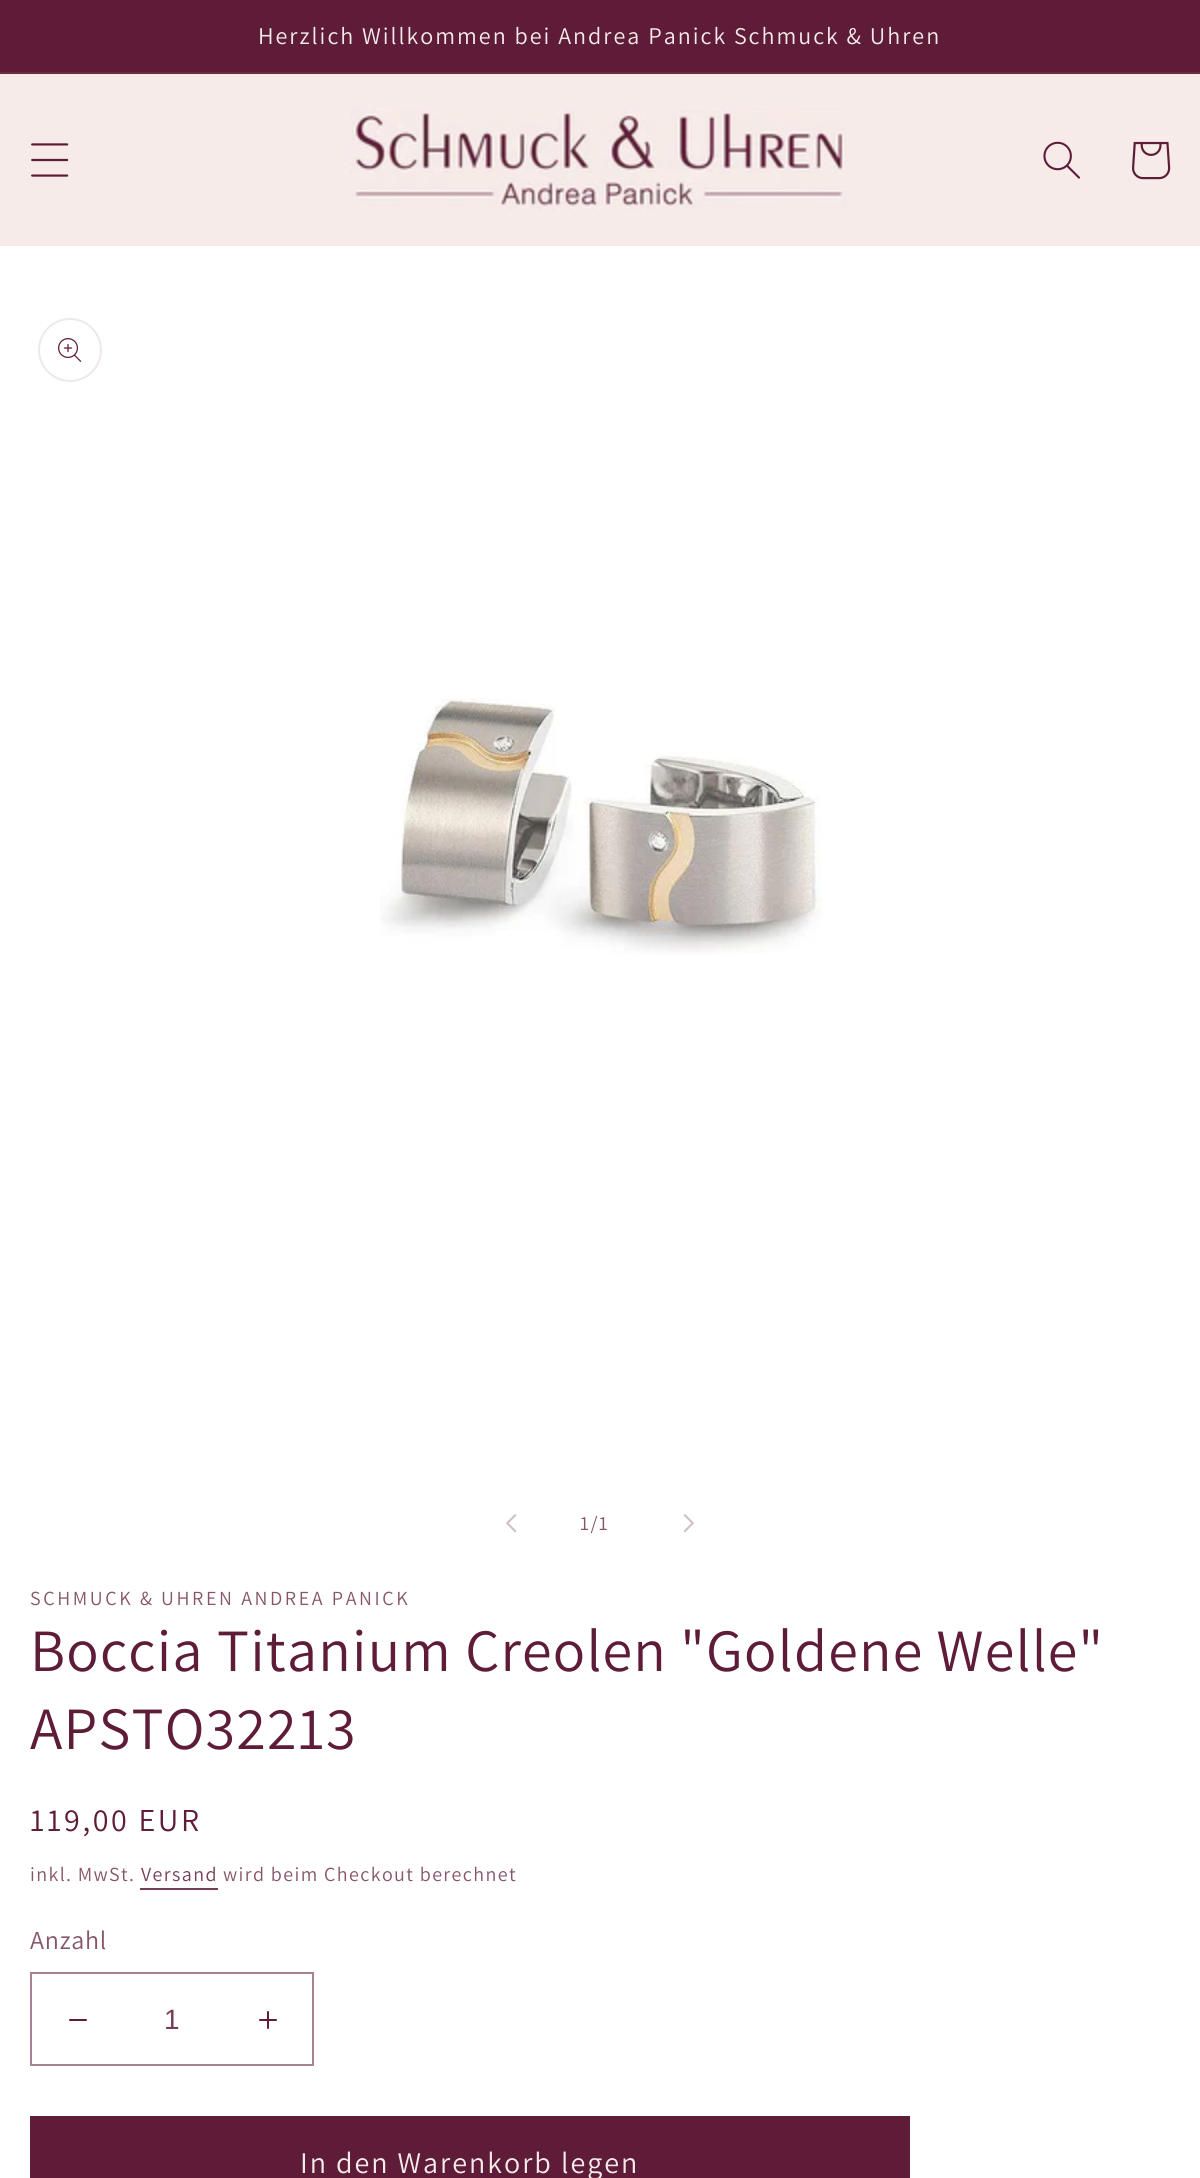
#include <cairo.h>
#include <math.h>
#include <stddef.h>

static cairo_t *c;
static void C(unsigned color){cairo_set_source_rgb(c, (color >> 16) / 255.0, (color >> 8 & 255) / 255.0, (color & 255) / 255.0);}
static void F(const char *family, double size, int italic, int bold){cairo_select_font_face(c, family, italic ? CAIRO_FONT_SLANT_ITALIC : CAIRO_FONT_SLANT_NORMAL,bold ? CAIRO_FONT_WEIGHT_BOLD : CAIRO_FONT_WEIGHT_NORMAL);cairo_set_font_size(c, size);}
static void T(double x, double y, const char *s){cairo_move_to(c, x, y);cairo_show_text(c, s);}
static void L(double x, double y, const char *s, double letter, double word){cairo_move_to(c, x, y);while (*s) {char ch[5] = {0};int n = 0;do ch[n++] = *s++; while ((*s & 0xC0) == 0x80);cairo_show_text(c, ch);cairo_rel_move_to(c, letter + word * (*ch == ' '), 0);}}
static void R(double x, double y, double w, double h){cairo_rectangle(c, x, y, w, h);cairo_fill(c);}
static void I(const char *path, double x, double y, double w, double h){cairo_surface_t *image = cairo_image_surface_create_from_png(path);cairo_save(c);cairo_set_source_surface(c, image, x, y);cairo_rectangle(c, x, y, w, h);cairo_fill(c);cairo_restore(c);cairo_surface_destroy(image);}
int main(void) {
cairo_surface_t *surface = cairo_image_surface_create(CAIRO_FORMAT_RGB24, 1200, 2178);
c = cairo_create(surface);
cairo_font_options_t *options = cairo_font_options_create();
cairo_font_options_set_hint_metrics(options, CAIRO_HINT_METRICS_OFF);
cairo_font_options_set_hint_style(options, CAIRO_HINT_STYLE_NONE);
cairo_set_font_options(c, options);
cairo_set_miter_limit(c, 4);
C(0xffffff);
cairo_paint(c);
C(0x5e1c38);
R(0,0,1200,72);
C(0x6a2d46);
R(0,72,1200,2);
F("Assistant",24,0,0);
C(0xf6ebe9);
L(258,44,"Herzlich Willkommen bei Andrea Panick Schmuck & Uhren",2,0);
R(0,74,1200,172);
I("1.png",31,143,38,34);
I("2.png",350,108,496,102);
I("3.png",1043,141,37,38);
I("4.png",1132,141,39,39);
cairo_arc(c,70,350,31,0,2 * M_PI);
C(0xefe8eb);
cairo_stroke(c);
I("5.png",58,338,24,24);
I("6.png",380,698,442,257);
I("7.png",506,1514,11,19);
F("Assistant",20,0,0);
C(0x86556a);
L(580,1530,"1/1",1.4,0);
I("8.png",683,1514,11,19);
L(30,1605,"SCHMUCK & UHREN ANDREA PANICK",2.6,0);
F("Assistant",60,0,0);
C(0x5e1c38);
L(30,1671,"Boccia Titanium Creolen \"Goldene Welle\"",1.2,0);
L(30,1749,"APSTO32213",1.2,0);
F("Assistant",32,0,0);
L(30,1831,"119,00 EUR",2.6,0);
F("Assistant",20,0,0);
C(0x86556a);
L(30,1881,"inkl. MwSt.",1.4,0);
C(0x763e56);
L(141,1881,"Versand",1.4,0);
R(140,1888,78,2);
C(0x86556a);
L(223,1881,"wird beim Checkout berechnet",1.4,0);
F("Assistant",26,0,0);
L(30,1949,"Anzahl",.75,0);
I("9.png",69,2019,18,2);
I("10.png",259,2011,18,18);
cairo_rectangle(c,31,1973,282,92);
C(0xa68292);
cairo_stroke(c);
F("Liberation Sans",28,0,0);
C(0x763e56);
T(164,2029,"1");
C(0x5e1c38);
R(30,2116,880,62);
F("Assistant",30,0,0);
C(0xf6ebe9);
L(300,2173,"In den Warenkorb legen",2,0);
cairo_surface_write_to_png(surface, "o.png");
cairo_font_options_destroy(options);
cairo_destroy(c);
cairo_surface_destroy(surface);
return 0;
}
